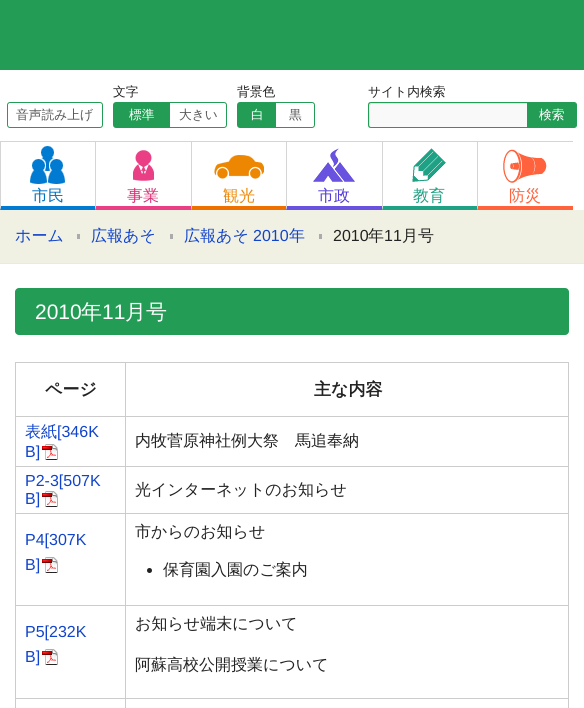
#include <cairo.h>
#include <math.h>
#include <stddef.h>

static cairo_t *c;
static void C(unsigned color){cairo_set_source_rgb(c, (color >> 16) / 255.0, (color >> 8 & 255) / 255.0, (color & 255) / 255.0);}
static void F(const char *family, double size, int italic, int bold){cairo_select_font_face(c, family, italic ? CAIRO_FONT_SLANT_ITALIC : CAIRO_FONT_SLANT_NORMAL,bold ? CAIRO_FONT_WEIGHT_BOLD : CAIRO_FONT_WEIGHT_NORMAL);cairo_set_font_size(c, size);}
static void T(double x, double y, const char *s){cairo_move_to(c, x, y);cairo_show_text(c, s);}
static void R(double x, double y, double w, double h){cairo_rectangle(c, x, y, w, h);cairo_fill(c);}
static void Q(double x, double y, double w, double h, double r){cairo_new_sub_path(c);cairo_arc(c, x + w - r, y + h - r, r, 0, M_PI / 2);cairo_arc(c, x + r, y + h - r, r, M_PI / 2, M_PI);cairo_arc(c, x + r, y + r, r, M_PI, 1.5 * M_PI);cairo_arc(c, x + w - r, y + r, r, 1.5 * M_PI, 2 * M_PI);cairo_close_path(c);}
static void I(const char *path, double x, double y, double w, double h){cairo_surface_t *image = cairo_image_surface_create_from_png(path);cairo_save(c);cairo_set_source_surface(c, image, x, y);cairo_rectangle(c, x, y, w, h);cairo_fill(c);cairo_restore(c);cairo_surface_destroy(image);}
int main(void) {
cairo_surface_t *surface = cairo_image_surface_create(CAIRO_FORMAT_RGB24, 584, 708);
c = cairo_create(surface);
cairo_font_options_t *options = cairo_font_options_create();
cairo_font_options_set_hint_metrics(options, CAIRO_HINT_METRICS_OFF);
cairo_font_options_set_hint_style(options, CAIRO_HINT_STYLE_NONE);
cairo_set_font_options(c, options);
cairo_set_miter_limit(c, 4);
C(0xffffff);
cairo_paint(c);
C(0x239d55);
R(0,0,584,70);
Q(7.5,102.5,95,25,2.5);
cairo_set_line_width(c,1);
cairo_stroke(c);
F("WenQuanYi Zen Hei Medium",12.75,0,0);
C(0x555555);
T(16,119,"音声読み上げ");
C(0x222222);
T(113,96,"文字");
Q(113.5,102.5,113,25,2.5);
C(0x239d55);
cairo_stroke(c);
R(114,103,56,24);
C(0xffffff);
T(129,119,"標準");
C(0x555555);
T(179,119,"大きい");
C(0x222222);
T(237,96,"背景色");
Q(237.5,102.5,77,25,2.5);
C(0x239d55);
cairo_stroke(c);
R(238,103,38,24);
C(0xffffff);
T(251,119,"白");
C(0x555555);
T(289,119,"黒");
C(0x222222);
T(368,96,"サイト内検索");
C(0xf9f9f9);
cairo_new_path(c);
cairo_move_to(c,371,102);
cairo_line_to(c,527,102);
cairo_line_to(c,527,128);
cairo_line_to(c,371,128);
cairo_curve_to(c,369.5,128,368,126.5,368,125);
cairo_line_to(c,368,105);
cairo_curve_to(c,368,103.5,369.5,102,371,102);
cairo_close_path(c);
cairo_fill(c);
C(0xe0e0e0);
cairo_new_path(c);
cairo_move_to(c,372,104);
cairo_line_to(c,527,104);
cairo_line_to(c,527,103);
cairo_line_to(c,371,103);
cairo_curve_to(c,370,103,369,104,369,105);
cairo_line_to(c,369,125);
cairo_curve_to(c,369,126,370,127,370,127);
cairo_line_to(c,370,116);
cairo_curve_to(c,370,114,368,104,372,104);
cairo_close_path(c);
cairo_fill(c);
C(0x239d55);
cairo_set_fill_rule(c,CAIRO_FILL_RULE_EVEN_ODD);
cairo_new_path(c);
cairo_move_to(c,371,102);
cairo_line_to(c,527,102);
cairo_line_to(c,527,128);
cairo_line_to(c,371,128);
cairo_curve_to(c,369,128,368,127,368,125);
cairo_line_to(c,368,105);
cairo_curve_to(c,368,103,369,102,371,102);
cairo_close_path(c);
cairo_move_to(c,371,103);
cairo_line_to(c,527,103);
cairo_line_to(c,527,127);
cairo_line_to(c,371,127);
cairo_curve_to(c,370,127,369,126,369,125);
cairo_line_to(c,369,105);
cairo_curve_to(c,369,104,370,103,371,103);
cairo_close_path(c);
cairo_fill(c);
cairo_new_path(c);
cairo_move_to(c,527.5,102.5);
cairo_line_to(c,574,102.5);
cairo_curve_to(c,575.5,102.5,576.5,103.5,576.5,105);
cairo_line_to(c,576.5,125);
cairo_curve_to(c,576.5,126.5,575.5,127.5,574,127.5);
cairo_line_to(c,527.5,127.5);
cairo_close_path(c);
cairo_fill_preserve(c);
cairo_stroke(c);
C(0xffffff);
T(539,119,"検索");
C(0xd5d5d5);
R(0,141,573,1);
C(0x007bd1);
cairo_set_fill_rule(c,CAIRO_FILL_RULE_WINDING);
cairo_new_path(c);
cairo_move_to(c,95,210);
cairo_line_to(c,0,210);
cairo_line_to(c,1,206);
cairo_line_to(c,95,206);
cairo_close_path(c);
cairo_fill(c);
C(0xd5d5d5);
cairo_new_path(c);
cairo_move_to(c,0,210);
cairo_line_to(c,0,141);
cairo_line_to(c,1,142);
cairo_line_to(c,1,206);
cairo_close_path(c);
cairo_fill(c);
I("1.png",30,146,35,38);
F("WenQuanYi Zen Hei Medium",16,0,0);
C(0x0070bf);
T(32,201,"市民");
C(0xea3f84);
cairo_new_path(c);
cairo_move_to(c,191,210);
cairo_line_to(c,95,210);
cairo_line_to(c,96,206);
cairo_line_to(c,191,206);
cairo_close_path(c);
cairo_fill(c);
C(0xd5d5d5);
cairo_new_path(c);
cairo_move_to(c,95,210);
cairo_line_to(c,95,141);
cairo_line_to(c,96,142);
cairo_line_to(c,96,206);
cairo_close_path(c);
cairo_fill(c);
I("2.png",133,150,21,31);
C(0xdc3176);
T(127,201,"事業");
C(0xed7000);
cairo_new_path(c);
cairo_move_to(c,286,210);
cairo_line_to(c,191,210);
cairo_line_to(c,192,206);
cairo_line_to(c,286,206);
cairo_close_path(c);
cairo_fill(c);
C(0xd5d5d5);
cairo_new_path(c);
cairo_move_to(c,191,210);
cairo_line_to(c,191,141);
cairo_line_to(c,192,142);
cairo_line_to(c,192,206);
cairo_close_path(c);
cairo_fill(c);
I("3.png",214,155,50,24);
C(0xed8600);
T(223,201,"観光");
C(0x6952e0);
cairo_new_path(c);
cairo_move_to(c,382,210);
cairo_line_to(c,286,210);
cairo_line_to(c,287,206);
cairo_line_to(c,382,206);
cairo_close_path(c);
cairo_fill(c);
C(0xd5d5d5);
cairo_new_path(c);
cairo_move_to(c,286,210);
cairo_line_to(c,286,141);
cairo_line_to(c,287,142);
cairo_line_to(c,287,206);
cairo_close_path(c);
cairo_fill(c);
I("4.png",313,148,42,34);
C(0x553cd6);
T(318,201,"市政");
C(0x1ea184);
cairo_new_path(c);
cairo_move_to(c,477,210);
cairo_line_to(c,382,210);
cairo_line_to(c,383,206);
cairo_line_to(c,477,206);
cairo_close_path(c);
cairo_fill(c);
C(0xd5d5d5);
cairo_new_path(c);
cairo_move_to(c,382,210);
cairo_line_to(c,382,141);
cairo_line_to(c,383,142);
cairo_line_to(c,383,206);
cairo_close_path(c);
cairo_fill(c);
I("5.png",412,148,34,34);
C(0x1ea184);
T(413,201,"教育");
C(0xff623c);
cairo_new_path(c);
cairo_move_to(c,573,210);
cairo_line_to(c,477,210);
cairo_line_to(c,478,206);
cairo_line_to(c,573,206);
cairo_close_path(c);
cairo_fill(c);
C(0xd5d5d5);
cairo_new_path(c);
cairo_move_to(c,477,210);
cairo_line_to(c,477,141);
cairo_line_to(c,478,142);
cairo_line_to(c,478,206);
cairo_close_path(c);
cairo_fill(c);
I("6.png",503,149,44,34);
C(0xff623c);
T(509,201,"防災");
C(0xf1f1e3);
R(0,210,584,53);
C(0xeaeadd);
R(0,263,584,1);
C(0xababab);
R(77,234,3,5);
C(0x1144cc);
T(15,241,"ホーム");
C(0xababab);
R(170,234,3,5);
C(0x1144cc);
T(91,241,"広報あそ");
C(0xababab);
R(319,234,3,5);
C(0x1144cc);
T(184,241,"広報あそ");
F("Liberation Sans",16,0,0);
T(253,241,"2010");
F("WenQuanYi Zen Hei Medium",16,0,0);
T(289,241,"年");
F("Liberation Sans",16,0,0);
C(0x222222);
T(333,241,"2010");
F("WenQuanYi Zen Hei Medium",16,0,0);
T(368,241,"年");
F("Liberation Sans",16,0,0);
T(384,241,"11");
F("WenQuanYi Zen Hei Medium",16,0,0);
T(402,241,"月号");
C(0x239d55);
Q(15,288,554,47,4);
cairo_fill(c);
F("Liberation Sans",21,0,0);
C(0xffffff);
T(35,319,"2010");
F("WenQuanYi Zen Hei Medium",21,0,0);
T(81,319,"年");
F("Liberation Sans",21,0,0);
T(102,319,"11");
F("WenQuanYi Zen Hei Medium",21,0,0);
T(125,319,"月号");
C(0xcccccc);
R(125,362,444,1);
R(125,416,444,1);
R(125,466,444,1);
R(125,513,444,1);
R(125,605,444,1);
R(125,698,444,1);
R(125,698,1,10);
R(15,698,111,1);
R(125,605,1,94);
R(15,605,111,1);
R(125,513,1,93);
R(15,513,111,1);
R(125,466,1,48);
R(15,466,111,1);
R(125,416,1,51);
R(15,416,111,1);
R(125,362,1,55);
R(15,362,111,1);
R(15,698,1,10);
R(15,605,1,94);
R(15,513,1,93);
R(15,466,1,48);
R(15,416,1,51);
R(15,362,1,55);
F("WenQuanYi Zen Hei",17,0,1);
C(0x222222);
T(45,395,"ページ");
C(0xcccccc);
R(568,698,1,10);
R(568,605,1,94);
R(568,513,1,93);
R(568,466,1,48);
R(568,416,1,51);
R(568,362,1,55);
C(0x222222);
T(314,395,"主な内容");
F("WenQuanYi Zen Hei Medium",16,0,0);
C(0x1144cc);
T(25,437,"表紙");
F("Liberation Sans",16,0,0);
T(57,437,"[346K");
T(25,457,"B]");
I("7.png",42,444,16,16);
F("WenQuanYi Zen Hei Medium",16,0,0);
C(0x222222);
T(135,446,"内牧菅原神社例大祭　馬追奉納");
F("Liberation Sans",16,0,0);
C(0x1144cc);
T(25,486,"P2-3[507K");
T(25,504,"B]");
I("7.png",42,491,16,16);
F("WenQuanYi Zen Hei Medium",16,0,0);
C(0x222222);
T(135,495,"光インターネットのお知らせ");
F("Liberation Sans",16,0,0);
C(0x1144cc);
T(25,545,"P4[307K");
T(25,570,"B]");
I("7.png",42,557,16,16);
F("WenQuanYi Zen Hei Medium",16,0,0);
C(0x222222);
T(135,537,"市からのお知らせ");
cairo_new_path(c);
cairo_arc(c,149.5,570.5,2.5,0,2 * M_PI);
cairo_fill(c);
T(163,575,"保育園入園のご案内");
F("Liberation Sans",16,0,0);
C(0x1144cc);
T(25,637,"P5[232K");
T(25,662,"B]");
I("7.png",42,649,16,16);
F("WenQuanYi Zen Hei Medium",16,0,0);
C(0x222222);
T(135,629,"お知らせ端末について");
T(135,670,"阿蘇高校公開授業について");
cairo_surface_write_to_png(surface, "o.png");
cairo_font_options_destroy(options);
cairo_destroy(c);
cairo_surface_destroy(surface);
return 0;
}
